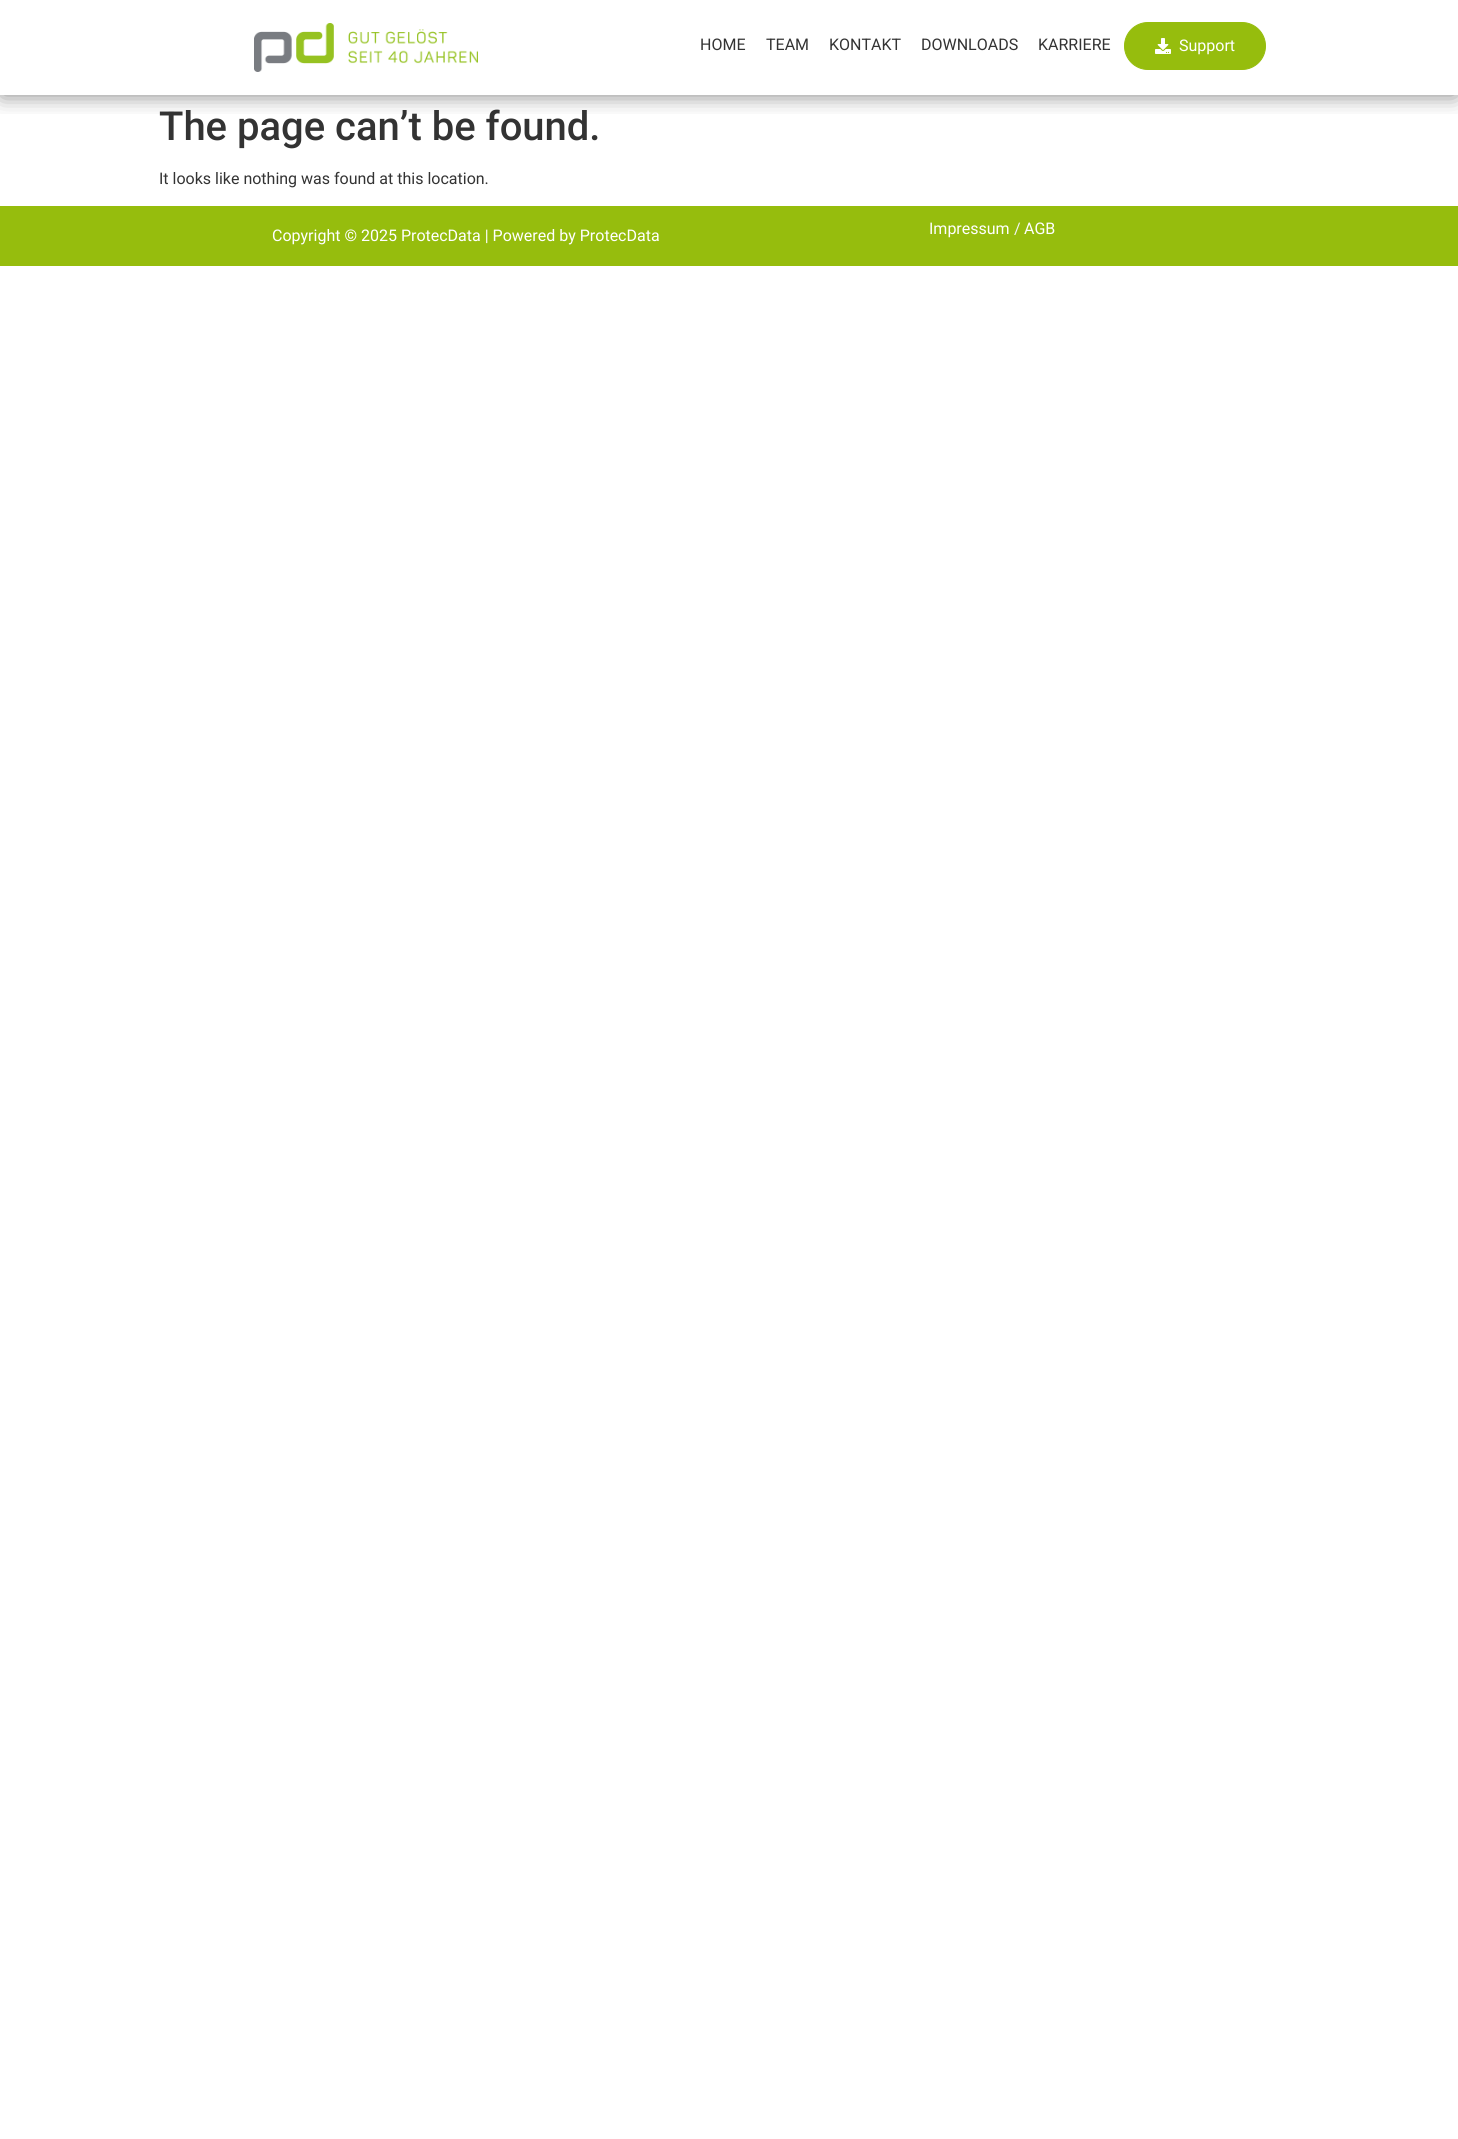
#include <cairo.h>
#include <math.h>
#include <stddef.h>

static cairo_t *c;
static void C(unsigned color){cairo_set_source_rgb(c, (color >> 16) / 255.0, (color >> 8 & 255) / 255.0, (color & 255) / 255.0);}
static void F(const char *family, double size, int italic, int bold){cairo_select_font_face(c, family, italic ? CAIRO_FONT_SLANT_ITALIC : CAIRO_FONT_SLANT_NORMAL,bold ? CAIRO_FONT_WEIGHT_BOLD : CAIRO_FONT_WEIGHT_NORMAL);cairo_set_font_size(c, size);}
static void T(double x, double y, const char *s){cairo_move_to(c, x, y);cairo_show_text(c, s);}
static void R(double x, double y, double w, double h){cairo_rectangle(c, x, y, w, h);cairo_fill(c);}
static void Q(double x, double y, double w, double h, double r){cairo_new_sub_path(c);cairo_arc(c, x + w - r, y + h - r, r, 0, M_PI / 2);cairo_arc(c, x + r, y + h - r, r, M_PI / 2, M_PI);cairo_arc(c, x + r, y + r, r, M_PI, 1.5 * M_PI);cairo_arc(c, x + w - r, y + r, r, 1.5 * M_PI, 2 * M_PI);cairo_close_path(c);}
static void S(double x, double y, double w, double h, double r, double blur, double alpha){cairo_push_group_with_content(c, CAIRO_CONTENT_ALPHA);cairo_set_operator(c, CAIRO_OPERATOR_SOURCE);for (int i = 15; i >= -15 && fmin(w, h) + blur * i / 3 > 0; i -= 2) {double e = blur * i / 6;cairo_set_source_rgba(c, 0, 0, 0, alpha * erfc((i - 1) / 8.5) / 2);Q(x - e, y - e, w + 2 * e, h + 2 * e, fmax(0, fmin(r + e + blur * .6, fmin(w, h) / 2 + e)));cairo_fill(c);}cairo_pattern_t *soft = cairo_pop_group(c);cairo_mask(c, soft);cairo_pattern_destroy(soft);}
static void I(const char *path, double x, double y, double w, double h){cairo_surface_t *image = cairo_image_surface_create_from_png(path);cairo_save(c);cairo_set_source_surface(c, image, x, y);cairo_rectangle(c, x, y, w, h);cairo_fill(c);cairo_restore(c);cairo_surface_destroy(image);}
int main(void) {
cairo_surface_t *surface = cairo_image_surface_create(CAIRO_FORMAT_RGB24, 1458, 2139);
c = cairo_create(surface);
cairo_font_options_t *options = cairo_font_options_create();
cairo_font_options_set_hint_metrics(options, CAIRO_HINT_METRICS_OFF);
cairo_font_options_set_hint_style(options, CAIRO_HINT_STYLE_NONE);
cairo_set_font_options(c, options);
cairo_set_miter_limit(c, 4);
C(0xffffff);
cairo_paint(c);
cairo_save(c);
cairo_rectangle(c,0,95,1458,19);
cairo_clip(c);
C(0x000000);
S(2,4,1454,91,0,11,.5);
cairo_restore(c);
I("1.png",254,23,224,49);
F("Roboto",16,0,0);
C(0x333333);
T(700,50,"HOME");
T(766,50,"TEAM");
T(829,50,"KONTAKT");
T(921,50,"DOWNLOADS");
T(1038,50,"KARRIERE");
C(0x96bd0d);
Q(1124.5,22.5,141,47,23.5);
cairo_fill_preserve(c);
cairo_set_line_width(c,1);
cairo_stroke(c);
I("2.png",1155,38,16,16);
C(0xffffff);
T(1179,51,"Support");
F("Roboto Medium",40,0,0);
C(0x333333);
T(159,140,"The page can’t be found.");
F("Roboto",16,0,0);
T(159,184,"It looks like nothing was found at this location.");
C(0x96bd0d);
R(0,206,1458,60);
C(0xffffff);
T(272,241,"Copyright © 2025 ProtecData | Powered by ProtecData");
T(929,234,"Impressum");
C(0xf3f5f8);
T(1014,234,"/");
C(0xffffff);
T(1024,234,"AGB");
cairo_surface_write_to_png(surface, "o.png");
cairo_font_options_destroy(options);
cairo_destroy(c);
cairo_surface_destroy(surface);
return 0;
}
